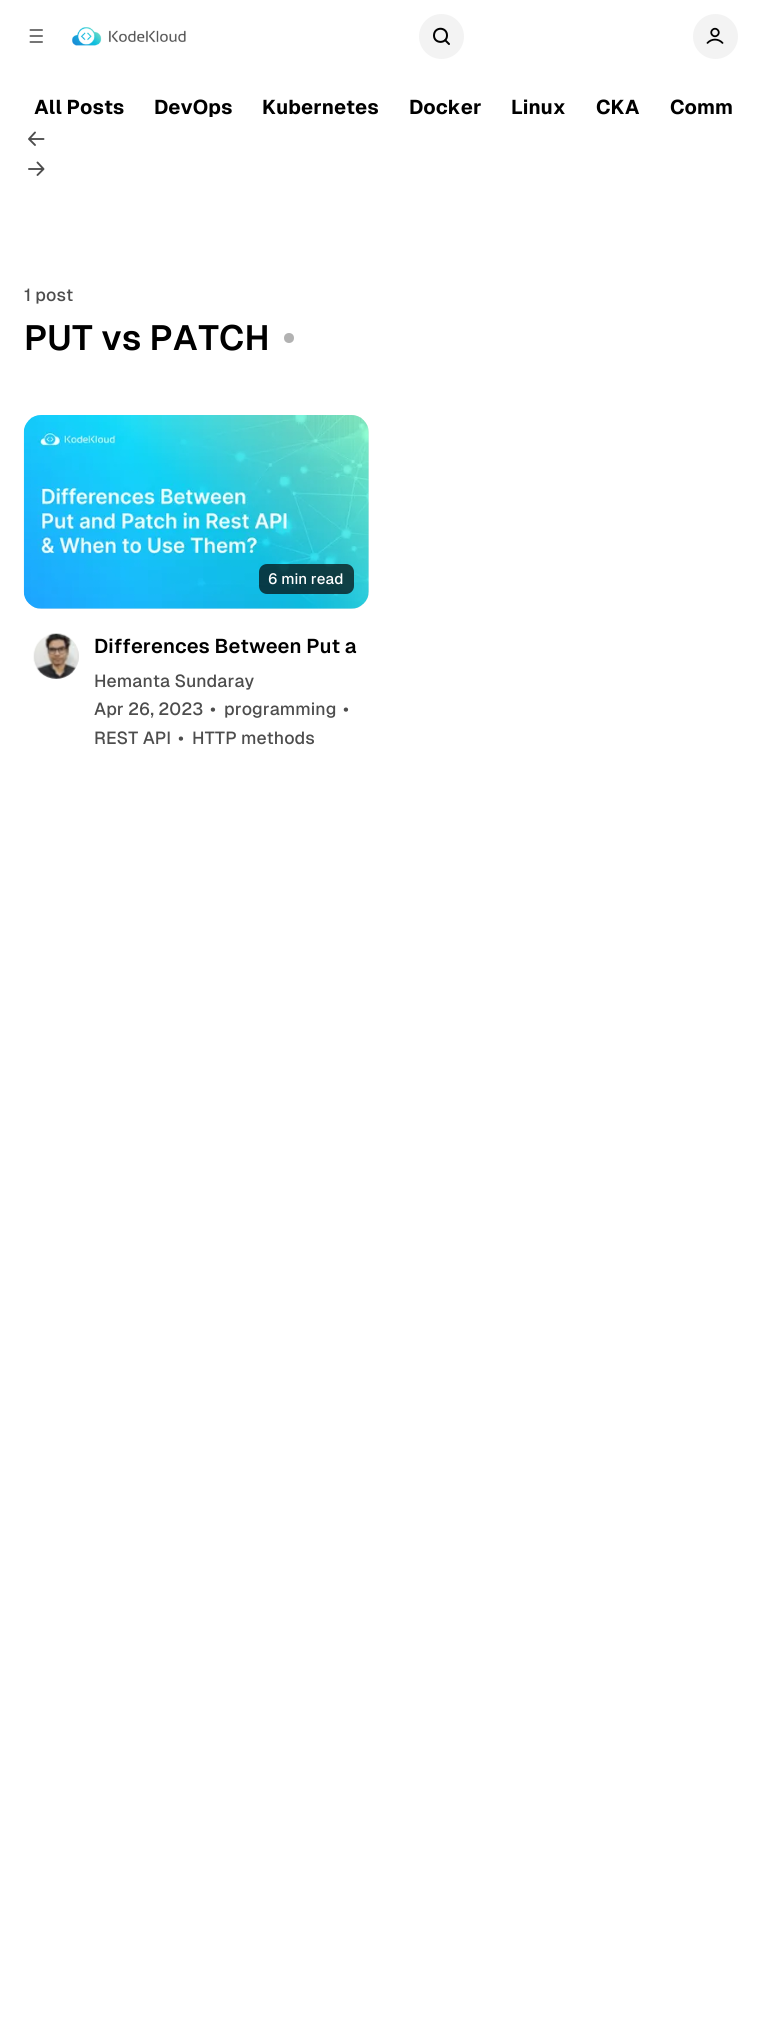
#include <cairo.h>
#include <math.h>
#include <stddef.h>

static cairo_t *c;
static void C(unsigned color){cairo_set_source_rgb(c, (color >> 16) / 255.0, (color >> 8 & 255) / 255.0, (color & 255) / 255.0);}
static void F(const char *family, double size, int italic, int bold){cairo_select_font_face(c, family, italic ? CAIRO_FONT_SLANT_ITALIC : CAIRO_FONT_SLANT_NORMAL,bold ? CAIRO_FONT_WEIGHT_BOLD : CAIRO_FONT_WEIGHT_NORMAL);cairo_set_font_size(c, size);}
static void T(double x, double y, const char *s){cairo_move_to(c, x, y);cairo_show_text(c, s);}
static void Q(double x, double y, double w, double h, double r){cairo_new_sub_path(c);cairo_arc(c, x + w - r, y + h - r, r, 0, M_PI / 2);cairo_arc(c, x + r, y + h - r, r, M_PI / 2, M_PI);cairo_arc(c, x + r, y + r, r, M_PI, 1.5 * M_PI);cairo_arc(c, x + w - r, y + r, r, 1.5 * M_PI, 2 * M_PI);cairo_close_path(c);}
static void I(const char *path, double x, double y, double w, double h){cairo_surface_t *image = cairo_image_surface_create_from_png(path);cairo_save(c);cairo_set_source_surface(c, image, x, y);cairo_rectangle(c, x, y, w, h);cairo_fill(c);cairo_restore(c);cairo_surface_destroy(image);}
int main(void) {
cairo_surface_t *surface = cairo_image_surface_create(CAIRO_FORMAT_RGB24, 761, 2042);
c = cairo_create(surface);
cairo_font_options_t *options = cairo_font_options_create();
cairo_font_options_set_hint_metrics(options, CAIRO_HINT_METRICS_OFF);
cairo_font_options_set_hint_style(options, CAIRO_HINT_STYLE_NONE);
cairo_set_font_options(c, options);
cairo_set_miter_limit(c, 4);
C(0xffffff);
cairo_paint(c);
cairo_new_path(c);
cairo_move_to(c,30.5,36);
cairo_line_to(c,42,36);
cairo_move_to(c,30.5,30);
cairo_line_to(c,42,30);
cairo_move_to(c,30.5,42);
cairo_line_to(c,42,42);
C(0x757575);
cairo_set_line_cap(c,CAIRO_LINE_CAP_ROUND);
cairo_set_line_join(c,CAIRO_LINE_JOIN_ROUND);
cairo_stroke(c);
I("1.png",72,27,114,19);
C(0xf3f3f3);
cairo_arc(c,441.5,36.5,22.5,0,2 * M_PI);
cairo_fill(c);
cairo_new_path(c);
cairo_move_to(c,449,44);
cairo_line_to(c,445,40);
cairo_move_to(c,447,35.5);
cairo_curve_to(c,447,44,434,44,434,35.5);
cairo_curve_to(c,434,26.5,447,26.5,447,35.5);
cairo_close_path(c);
C(0x000000);
cairo_stroke(c);
C(0xf3f3f3);
cairo_arc(c,715.5,36.5,22.5,0,2 * M_PI);
cairo_fill(c);
I("2.png",706,27,18,17);
F("Geist",20,0,1);
C(0x000000);
T(34,114,"All Posts");
T(154,114,"DevOps");
T(262,114,"Kubernetes");
T(409,114,"Docker");
T(511,114,"Linux");
T(596,114,"CKA");
T(670,114,"Comm");
cairo_new_path(c);
cairo_move_to(c,43.5,139);
cairo_line_to(c,29,139);
cairo_move_to(c,29,139);
cairo_line_to(c,35,132.5);
cairo_move_to(c,29,139);
cairo_line_to(c,35,145);
cairo_move_to(c,29,169);
cairo_line_to(c,43.5,169);
cairo_move_to(c,43.5,169);
cairo_line_to(c,37.5,162.5);
cairo_move_to(c,43.5,169);
cairo_line_to(c,37.5,175);
C(0x4d4d4d);
cairo_set_line_width(c,1.9);
cairo_stroke(c);
F("Geist Medium",17.5,0,0);
T(24,301,"1 post");
F("Geist SemiBold",35,0,0);
C(0x000000);
T(24,350,"PUT vs PATCH");
C(0xb2b2b2);
cairo_new_path(c);
cairo_arc(c,289,338,5,0,2 * M_PI);
cairo_fill(c);
C(0xededed);
Q(24,415,345,194,18);
cairo_fill(c);
I("3.png",23,415,346,194);
cairo_set_source_rgba(c,0.02,0.02,0.02,0.7);
Q(259,564,95,30,8);
cairo_fill(c);
F("Geist Medium",15,0,0);
C(0xffffff);
T(268,584,"6 min read");
F("Geist SemiBold",20,0,0);
C(0x000000);
T(94,653,"Differences Between Put a");
C(0xf3f3f3);
cairo_new_path(c);
cairo_arc(c,56.5,656.5,22.5,0,2 * M_PI);
cairo_fill(c);
I("4.png",33,633,46,46);
F("Geist Medium",17.5,0,0);
C(0x4d4d4d);
T(94,687,"Hemanta Sundaray");
T(94,715,"Apr 26, 2023");
T(210,715,"•");
T(224,715,"programming");
T(343,715,"•");
T(94,744,"REST API");
T(178,744,"•");
T(192,744,"HTTP methods");
cairo_surface_write_to_png(surface, "o.png");
cairo_font_options_destroy(options);
cairo_destroy(c);
cairo_surface_destroy(surface);
return 0;
}
